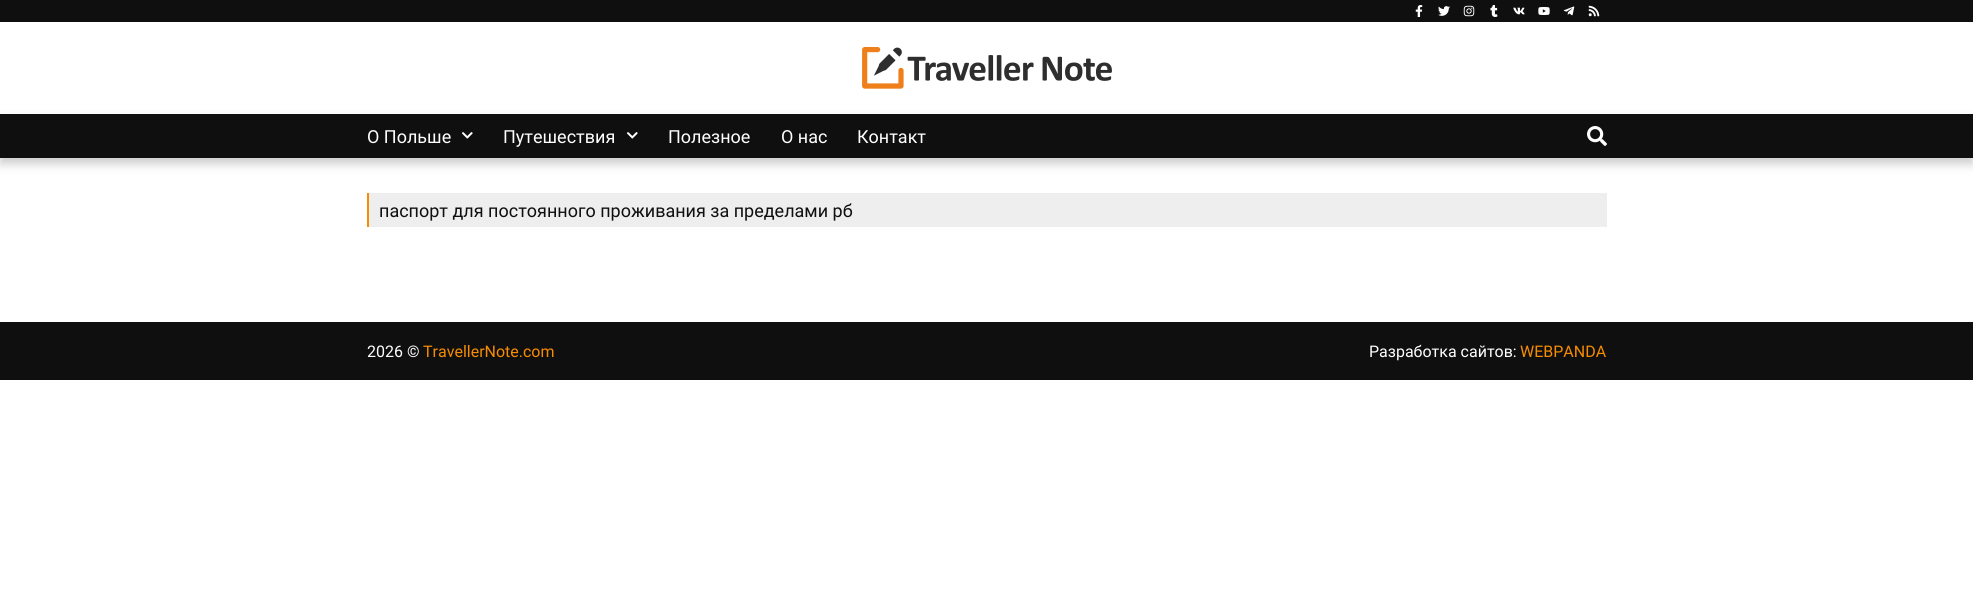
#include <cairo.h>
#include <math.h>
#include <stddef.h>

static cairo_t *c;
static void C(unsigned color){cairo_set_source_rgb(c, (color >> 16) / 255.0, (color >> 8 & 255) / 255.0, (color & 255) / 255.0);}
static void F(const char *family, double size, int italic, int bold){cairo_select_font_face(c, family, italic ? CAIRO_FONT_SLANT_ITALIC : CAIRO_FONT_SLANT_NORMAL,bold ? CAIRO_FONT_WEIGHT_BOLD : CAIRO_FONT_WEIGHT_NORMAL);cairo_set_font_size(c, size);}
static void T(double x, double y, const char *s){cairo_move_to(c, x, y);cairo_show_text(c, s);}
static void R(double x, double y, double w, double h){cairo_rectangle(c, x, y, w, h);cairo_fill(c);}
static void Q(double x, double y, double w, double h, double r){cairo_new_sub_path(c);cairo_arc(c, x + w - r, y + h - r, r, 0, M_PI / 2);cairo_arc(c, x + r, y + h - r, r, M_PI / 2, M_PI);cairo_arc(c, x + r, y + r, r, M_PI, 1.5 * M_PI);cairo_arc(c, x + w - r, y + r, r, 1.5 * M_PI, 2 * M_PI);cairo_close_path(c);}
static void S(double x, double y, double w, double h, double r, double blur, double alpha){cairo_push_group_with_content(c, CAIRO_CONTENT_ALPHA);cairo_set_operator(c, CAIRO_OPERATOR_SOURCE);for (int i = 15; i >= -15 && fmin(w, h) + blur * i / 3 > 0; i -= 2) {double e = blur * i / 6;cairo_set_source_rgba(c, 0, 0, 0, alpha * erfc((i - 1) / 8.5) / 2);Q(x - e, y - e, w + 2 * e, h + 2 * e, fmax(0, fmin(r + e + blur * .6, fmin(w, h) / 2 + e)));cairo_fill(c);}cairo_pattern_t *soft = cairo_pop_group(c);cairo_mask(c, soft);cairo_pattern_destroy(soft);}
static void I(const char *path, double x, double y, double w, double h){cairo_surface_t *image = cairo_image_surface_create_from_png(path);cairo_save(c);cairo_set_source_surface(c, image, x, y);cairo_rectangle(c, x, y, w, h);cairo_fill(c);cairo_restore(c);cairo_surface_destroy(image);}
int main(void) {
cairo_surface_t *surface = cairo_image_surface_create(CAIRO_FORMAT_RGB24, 1973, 615);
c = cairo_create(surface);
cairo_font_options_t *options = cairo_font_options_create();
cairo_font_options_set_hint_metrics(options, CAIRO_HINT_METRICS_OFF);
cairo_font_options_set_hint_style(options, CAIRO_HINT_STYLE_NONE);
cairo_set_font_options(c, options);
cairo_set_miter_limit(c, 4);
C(0xffffff);
cairo_paint(c);
C(0x0f0f0f);
R(0,0,1973,22);
I("1.png",1415,5,8,12);
I("2.png",1438,6,12,10);
I("3.png",1463,5,12,12);
I("4.png",1490,5,8,12);
I("5.png",1513,7,12,8);
I("6.png",1538,7,12,8);
I("7.png",1563,6,12,10);
I("8.png",1588,5,12,12);
I("9.png",862,47,250,42);
C(0x000000);
S(0,120,1973,44,0,5,.2);
C(0x0f0f0f);
R(0,114,1973,44);
F("Roboto",18,0,0);
C(0xffffff);
T(367,143,"О Польше");
I("10.png",462,132,11,7);
T(503,143,"Путешествия");
I("10.png",627,132,11,7);
T(668,143,"Полезное");
T(781,143,"О нас");
T(857,143,"Контакт");
I("11.png",1587,126,20,20);
C(0xeeeeee);
R(369,193,1238,34);
C(0xf88c00);
R(367,193,2,34);
C(0x0f0f0f);
T(379,217,"паспорт для постоянного проживания за пределами рб");
R(0,322,1973,58);
F("Roboto",16,0,0);
C(0xffffff);
T(367,357,"2026 ©");
C(0xf88c00);
T(423,357,"TravellerNote.com");
C(0xffffff);
T(1369,357,"Разработка сайтов:");
C(0xf88c00);
T(1520,357,"WEBPANDA");
cairo_surface_write_to_png(surface, "o.png");
cairo_font_options_destroy(options);
cairo_destroy(c);
cairo_surface_destroy(surface);
return 0;
}
